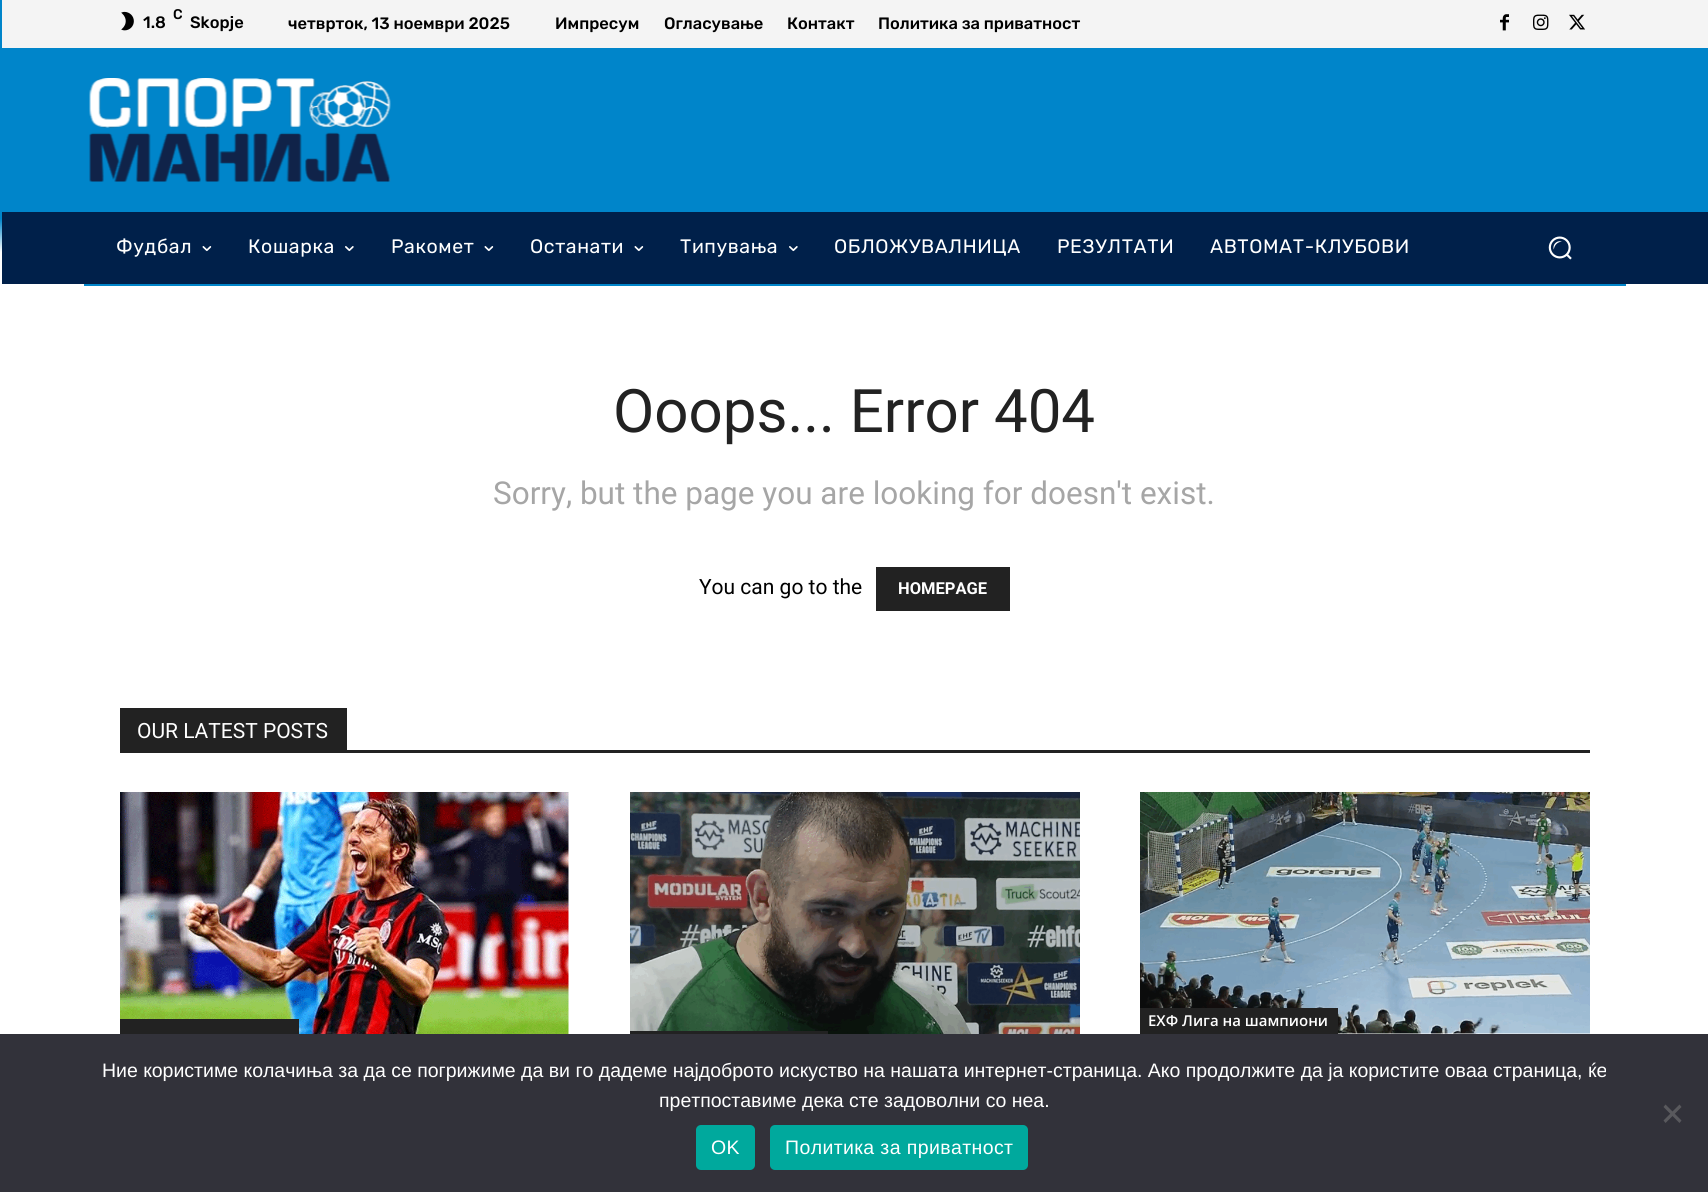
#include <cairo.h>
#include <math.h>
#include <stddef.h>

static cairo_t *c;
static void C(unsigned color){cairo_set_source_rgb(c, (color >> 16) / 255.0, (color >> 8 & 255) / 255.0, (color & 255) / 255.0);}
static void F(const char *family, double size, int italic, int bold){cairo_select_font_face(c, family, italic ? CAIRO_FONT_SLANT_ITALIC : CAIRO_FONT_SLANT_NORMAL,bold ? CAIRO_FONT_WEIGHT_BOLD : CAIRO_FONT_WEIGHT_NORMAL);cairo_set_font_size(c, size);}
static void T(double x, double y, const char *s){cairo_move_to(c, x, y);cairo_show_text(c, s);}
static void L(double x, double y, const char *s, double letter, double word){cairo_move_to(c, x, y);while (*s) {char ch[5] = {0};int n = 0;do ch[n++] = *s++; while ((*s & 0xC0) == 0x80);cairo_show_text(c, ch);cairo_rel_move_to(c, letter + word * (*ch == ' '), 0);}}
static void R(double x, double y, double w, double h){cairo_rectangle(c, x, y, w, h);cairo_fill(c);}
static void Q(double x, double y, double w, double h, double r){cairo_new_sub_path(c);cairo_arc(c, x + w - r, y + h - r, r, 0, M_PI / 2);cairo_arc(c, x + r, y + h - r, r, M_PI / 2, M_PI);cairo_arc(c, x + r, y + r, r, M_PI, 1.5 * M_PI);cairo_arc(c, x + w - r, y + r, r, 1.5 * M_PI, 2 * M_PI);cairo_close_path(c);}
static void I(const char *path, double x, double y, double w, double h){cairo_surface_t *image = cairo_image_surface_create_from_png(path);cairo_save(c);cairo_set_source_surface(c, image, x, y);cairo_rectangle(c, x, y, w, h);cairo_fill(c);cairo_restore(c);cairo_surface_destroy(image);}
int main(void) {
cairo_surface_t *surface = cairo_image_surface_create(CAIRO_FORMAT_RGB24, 1708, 1192);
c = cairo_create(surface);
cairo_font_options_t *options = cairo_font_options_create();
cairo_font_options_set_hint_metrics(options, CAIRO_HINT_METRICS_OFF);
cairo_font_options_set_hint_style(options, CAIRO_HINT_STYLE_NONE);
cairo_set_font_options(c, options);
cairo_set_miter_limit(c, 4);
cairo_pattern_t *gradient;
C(0xffffff);
cairo_paint(c);
gradient = cairo_pattern_create_linear(854,300,854,0);
cairo_pattern_add_color_stop_rgba(gradient,0,1,1,1,1);
cairo_pattern_add_color_stop_rgba(gradient,.16,1,1,1,1);
cairo_pattern_add_color_stop_rgba(gradient,.27,0,0.522,0.792,1);
cairo_pattern_add_color_stop_rgba(gradient,1,0,0.522,0.792,1);
cairo_set_source(c,gradient);
cairo_pattern_destroy(gradient);
R(0,0,1708,252);
C(0xf4f4f4);
R(2,0,1706,48);
I("1.png",121,11,13,20);
F("Rubik Medium",14,0,0);
C(0x000000);
T(173,19,"C");
F("Rubik Medium",16.5,0,0);
T(143,28,"1.8");
T(190,28,"Skopje");
T(288,29,"четврток, 13 ноември 2025");
T(555,29,"Импресум");
T(664,29,"Огласување");
T(787,29,"Контакт");
T(878,29,"Политика за приватност");
I("2.png",1500,14,9,17);
I("3.png",1533,14,16,16);
I("4.png",1569,14,16,16);
I("5.png",89,78,302,104);
C(0x00204a);
R(2,212,1706,72);
F("Rubik",19.5,0,0);
C(0xffffff);
L(116,253,"Фудбал",.6,0);
I("6.png",202,246,10,6);
L(248,253,"Кошарка",.6,0);
I("7.png",345,246,9,6);
L(391,253,"Ракомет",.6,0);
I("6.png",484,246,10,6);
L(530,253,"Останати",.6,0);
I("6.png",634,246,10,6);
L(680,253,"Типувања",.6,0);
I("7.png",789,246,9,6);
L(834,253,"ОБЛОЖУВАЛНИЦА",.6,0);
L(1057,253,"РЕЗУЛТАТИ",.6,0);
L(1210,253,"АВТОМАТ-КЛУБОВИ",.6,0);
I("8.png",1548,236,24,24);
C(0x0085ca);
R(84,284,1542,2);
F("Roboto",60,0,0);
C(0x222222);
T(613,432,"Ooops... Error 404");
F("Roboto",31.5,0,0);
C(0xa6a6a6);
T(493,504,"Sorry, but the page you are looking for doesn't exist.");
F("Roboto",21,0,0);
C(0x000000);
T(699,594,"You can go to the");
C(0x222222);
R(876,567,134,44);
F("Roboto",16.5,0,1);
C(0xffffff);
T(898,594,"HOMEPAGE");
C(0x222222);
R(120,750,1470,3);
R(120,708,227,42);
F("Roboto",21,0,0);
C(0xffffff);
T(137,738,"OUR LATEST POSTS");
I("9.png",120,792,449,242);
C(0x222222);
R(120,1019,179,15);
I("10.png",630,792,450,242);
R(630,1031,198,3);
I("11.png",1140,792,450,242);
R(1140,1008,198,26);
F("Open Sans SemiBold",15,0,0);
C(0xffffff);
T(1148,1026,"ЕХФ Лига на шампиони");
C(0x32323a);
R(0,1034,1708,158);
F("Liberation Sans",19.5,0,0);
C(0xffffff);
T(102,1077,"Ние користиме колачиња за да се погрижиме да ви го дадеме најдоброто искуство на нашата интернет-страница. Ако продолжите да ја користите оваа страница, ќе");
T(659,1107,"претпоставиме дека сте задоволни со неа.");
C(0x59595d);
cairo_new_path(c);
cairo_move_to(c,1679.5,1104.5);
cairo_line_to(c,1681.5,1107);
cairo_line_to(c,1665.5,1123);
cairo_line_to(c,1663.5,1120.5);
cairo_close_path(c);
cairo_fill(c);
cairo_new_path(c);
cairo_move_to(c,1663.5,1107);
cairo_line_to(c,1665.5,1104.5);
cairo_line_to(c,1681.5,1120.5);
cairo_line_to(c,1679.5,1123);
cairo_close_path(c);
cairo_fill(c);
C(0x00a99d);
Q(696,1125,59,45,5);
cairo_fill(c);
C(0xffffff);
L(711,1154,"OK",.4,0);
C(0x00a99d);
Q(770,1125,258,45,5);
cairo_fill(c);
C(0xffffff);
L(785,1154,"Политика за приватност",.4,0);
cairo_surface_write_to_png(surface, "o.png");
cairo_font_options_destroy(options);
cairo_destroy(c);
cairo_surface_destroy(surface);
return 0;
}
